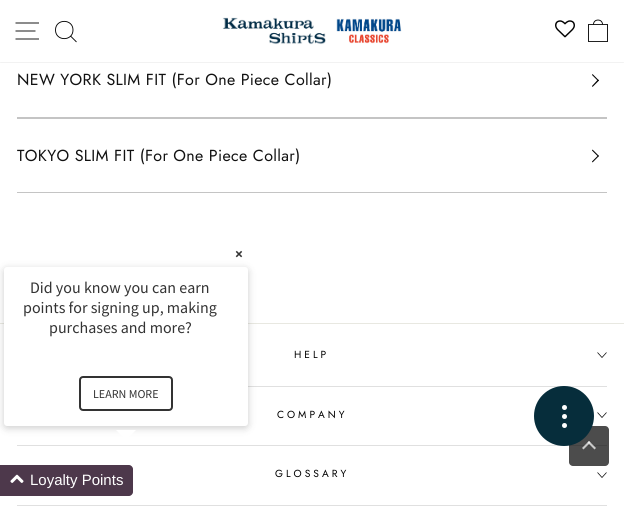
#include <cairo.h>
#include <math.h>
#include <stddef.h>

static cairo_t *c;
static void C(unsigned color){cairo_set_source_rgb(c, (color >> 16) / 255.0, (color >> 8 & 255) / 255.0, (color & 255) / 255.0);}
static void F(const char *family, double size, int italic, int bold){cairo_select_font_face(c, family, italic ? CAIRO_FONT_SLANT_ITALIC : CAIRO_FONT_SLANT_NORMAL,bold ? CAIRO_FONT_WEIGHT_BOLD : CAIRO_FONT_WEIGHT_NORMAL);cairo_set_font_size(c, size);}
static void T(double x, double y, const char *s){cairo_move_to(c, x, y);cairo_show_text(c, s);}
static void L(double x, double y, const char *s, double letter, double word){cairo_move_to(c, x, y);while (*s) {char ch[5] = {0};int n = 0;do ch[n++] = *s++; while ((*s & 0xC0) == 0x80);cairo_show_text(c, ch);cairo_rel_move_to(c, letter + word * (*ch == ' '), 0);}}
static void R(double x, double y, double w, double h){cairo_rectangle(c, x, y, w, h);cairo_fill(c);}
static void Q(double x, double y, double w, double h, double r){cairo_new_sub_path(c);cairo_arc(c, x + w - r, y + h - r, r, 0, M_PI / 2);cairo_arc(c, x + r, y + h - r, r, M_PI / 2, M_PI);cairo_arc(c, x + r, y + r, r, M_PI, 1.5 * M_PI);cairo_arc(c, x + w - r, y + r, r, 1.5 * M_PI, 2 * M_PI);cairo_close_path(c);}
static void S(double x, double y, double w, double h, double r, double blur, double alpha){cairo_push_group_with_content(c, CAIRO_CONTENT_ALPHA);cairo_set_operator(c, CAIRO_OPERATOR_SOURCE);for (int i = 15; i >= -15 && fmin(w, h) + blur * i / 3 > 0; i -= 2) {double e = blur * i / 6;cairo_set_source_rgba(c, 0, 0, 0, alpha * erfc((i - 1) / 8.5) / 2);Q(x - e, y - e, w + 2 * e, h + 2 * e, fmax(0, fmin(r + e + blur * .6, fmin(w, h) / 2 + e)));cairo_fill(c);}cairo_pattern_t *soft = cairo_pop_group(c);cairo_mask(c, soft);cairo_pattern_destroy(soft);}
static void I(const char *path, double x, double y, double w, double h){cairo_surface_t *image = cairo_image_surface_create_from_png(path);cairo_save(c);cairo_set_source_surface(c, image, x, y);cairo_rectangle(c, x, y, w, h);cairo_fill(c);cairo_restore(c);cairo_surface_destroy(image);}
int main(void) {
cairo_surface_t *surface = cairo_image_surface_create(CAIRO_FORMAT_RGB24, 624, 516);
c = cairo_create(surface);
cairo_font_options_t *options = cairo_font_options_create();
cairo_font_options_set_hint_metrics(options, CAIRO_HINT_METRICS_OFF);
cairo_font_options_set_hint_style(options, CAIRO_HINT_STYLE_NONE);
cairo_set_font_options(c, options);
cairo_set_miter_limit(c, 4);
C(0xffffff);
cairo_paint(c);
C(0x000000);
S(0,0,624,62,0,.5,.2);
C(0xffffff);
R(0,0,624,62);
I("1.png",222,17,104,28);
I("2.png",336,18,66,26);
cairo_new_path(c);
cairo_move_to(c,15.5,23);
cairo_line_to(c,39,23);
cairo_move_to(c,15.5,31);
cairo_line_to(c,35.5,31);
cairo_move_to(c,15.5,39);
cairo_line_to(c,39,39);
C(0x000000);
cairo_set_line_width(c,.9);
cairo_stroke(c);
cairo_new_path(c);
cairo_move_to(c,73,30);
cairo_curve_to(c,73,41.5,55.5,41.5,55.5,30);
cairo_curve_to(c,55.5,18.5,73,18.5,73,30);
cairo_close_path(c);
cairo_move_to(c,76.5,42);
cairo_line_to(c,70.5,36);
cairo_stroke(c);
I("3.png",555,20,20,18);
cairo_new_path(c);
cairo_move_to(c,588.5,24.5);
cairo_line_to(c,607.5,24.5);
cairo_line_to(c,607.5,41.5);
cairo_line_to(c,588.5,41.5);
cairo_close_path(c);
cairo_move_to(c,593.5,24.5);
cairo_curve_to(c,593.5,18.5,602.5,18.5,602.5,24.5);
cairo_stroke(c);
C(0xc4c4c4);
R(17,117,590,2);
F("Jost",16,0,0);
C(0x111111);
L(17,85,"NEW YORK SLIM FIT (For One Piece Collar)",.35,0);
C(0x000000);
cairo_new_path(c);
cairo_move_to(c,592.5,74);
cairo_line_to(c,599,80.5);
cairo_line_to(c,598,81);
cairo_line_to(c,592,75);
cairo_close_path(c);
cairo_fill(c);
cairo_new_path(c);
cairo_move_to(c,598,79.5);
cairo_line_to(c,599,80.5);
cairo_line_to(c,592.5,87);
cairo_line_to(c,592,86);
cairo_close_path(c);
cairo_fill(c);
C(0xc4c4c4);
R(17,192,590,1);
C(0x111111);
L(17,161,"TOKYO SLIM FIT (For One Piece Collar)",.35,0);
C(0x000000);
cairo_new_path(c);
cairo_move_to(c,592.5,149.5);
cairo_line_to(c,599,156);
cairo_line_to(c,598,156.5);
cairo_line_to(c,592,150.5);
cairo_close_path(c);
cairo_fill(c);
cairo_new_path(c);
cairo_move_to(c,598,155.5);
cairo_line_to(c,599,156);
cairo_line_to(c,592.5,162.5);
cairo_line_to(c,592,161.5);
cairo_close_path(c);
cairo_fill(c);
C(0xe0e0e0);
R(248,386,359,1);
R(17,445,590,1);
cairo_set_source_rgba(c,0,0,0,0.7);
Q(569,426,40,40,4);
cairo_fill(c);
cairo_set_source_rgba(c,1,1,1,0.7);
cairo_new_path(c);
cairo_move_to(c,583.5,449.5);
cairo_line_to(c,582,448);
cairo_line_to(c,589,441);
cairo_line_to(c,590.5,442.5);
cairo_close_path(c);
cairo_fill(c);
cairo_new_path(c);
cairo_move_to(c,594.5,449.5);
cairo_line_to(c,587.5,442.5);
cairo_line_to(c,589,441);
cairo_line_to(c,596,448);
cairo_close_path(c);
cairo_fill(c);
C(0x062d3b);
cairo_arc(c,564,416,30,0,2 * M_PI);
cairo_fill(c);
C(0xffffff);
cairo_arc(c,564.5,407.5,2.5,0,2 * M_PI);
cairo_fill(c);
cairo_arc(c,564.5,416.5,2.5,0,2 * M_PI);
cairo_fill(c);
cairo_arc(c,564.5,425.5,2.5,0,2 * M_PI);
cairo_fill(c);
C(0xe8e8e1);
R(0,323,624,1);
F("Jost",10.25,0,0);
C(0x000000);
L(294,358,"HELP",3,0);
cairo_new_path(c);
cairo_move_to(c,597.5,352.5);
cairo_line_to(c,602,357.5);
cairo_line_to(c,606.5,352.5);
cairo_set_line_width(c,.7);
cairo_stroke(c);
L(277,418,"COMPANY",3,0);
cairo_new_path(c);
cairo_move_to(c,597.5,412.5);
cairo_line_to(c,602,417.5);
cairo_line_to(c,606.5,412.5);
cairo_stroke(c);
L(275,477,"GLOSSARY",3,0);
cairo_new_path(c);
cairo_move_to(c,597.5,472.5);
cairo_line_to(c,602,477.5);
cairo_line_to(c,606.5,472.5);
cairo_stroke(c);
C(0xe0e0e0);
R(17,505,590,1);
F("Source Sans Pro",15,0,1);
C(0x333333);
T(235,259,"×");
C(0x000000);
S(4,269,244,159,3,4,.2);
C(0xffffff);
Q(4,267,244,159,3);
cairo_fill(c);
F("Source Sans Pro",16,0,0);
C(0x333333);
T(30,293,"Did you know you can earn");
T(23,313,"points for signing up, making");
T(49,333,"purchases and more?");
Q(80,377,92,33,3);
cairo_set_line_width(c,2);
cairo_stroke(c);
F("Source Sans Pro",12,0,0);
T(93,398,"LEARN MORE");
C(0xffffff);
cairo_new_path(c);
cairo_move_to(c,116,430);
cairo_line_to(c,136,430);
cairo_line_to(c,126,440);
cairo_close_path(c);
cairo_fill(c);
C(0x4d384b);
cairo_new_path(c);
cairo_move_to(c,0,465);
cairo_line_to(c,129,465);
cairo_curve_to(c,131,465,133,467,133,469);
cairo_line_to(c,133,492);
cairo_curve_to(c,133,494,131,496,129,496);
cairo_line_to(c,0,496);
cairo_close_path(c);
cairo_fill(c);
I("4.png",10,474,14,9);
F("Liberation Sans",15,0,0);
C(0xffffff);
T(30,485,"Loyalty Points");
cairo_surface_write_to_png(surface, "o.png");
cairo_font_options_destroy(options);
cairo_destroy(c);
cairo_surface_destroy(surface);
return 0;
}
